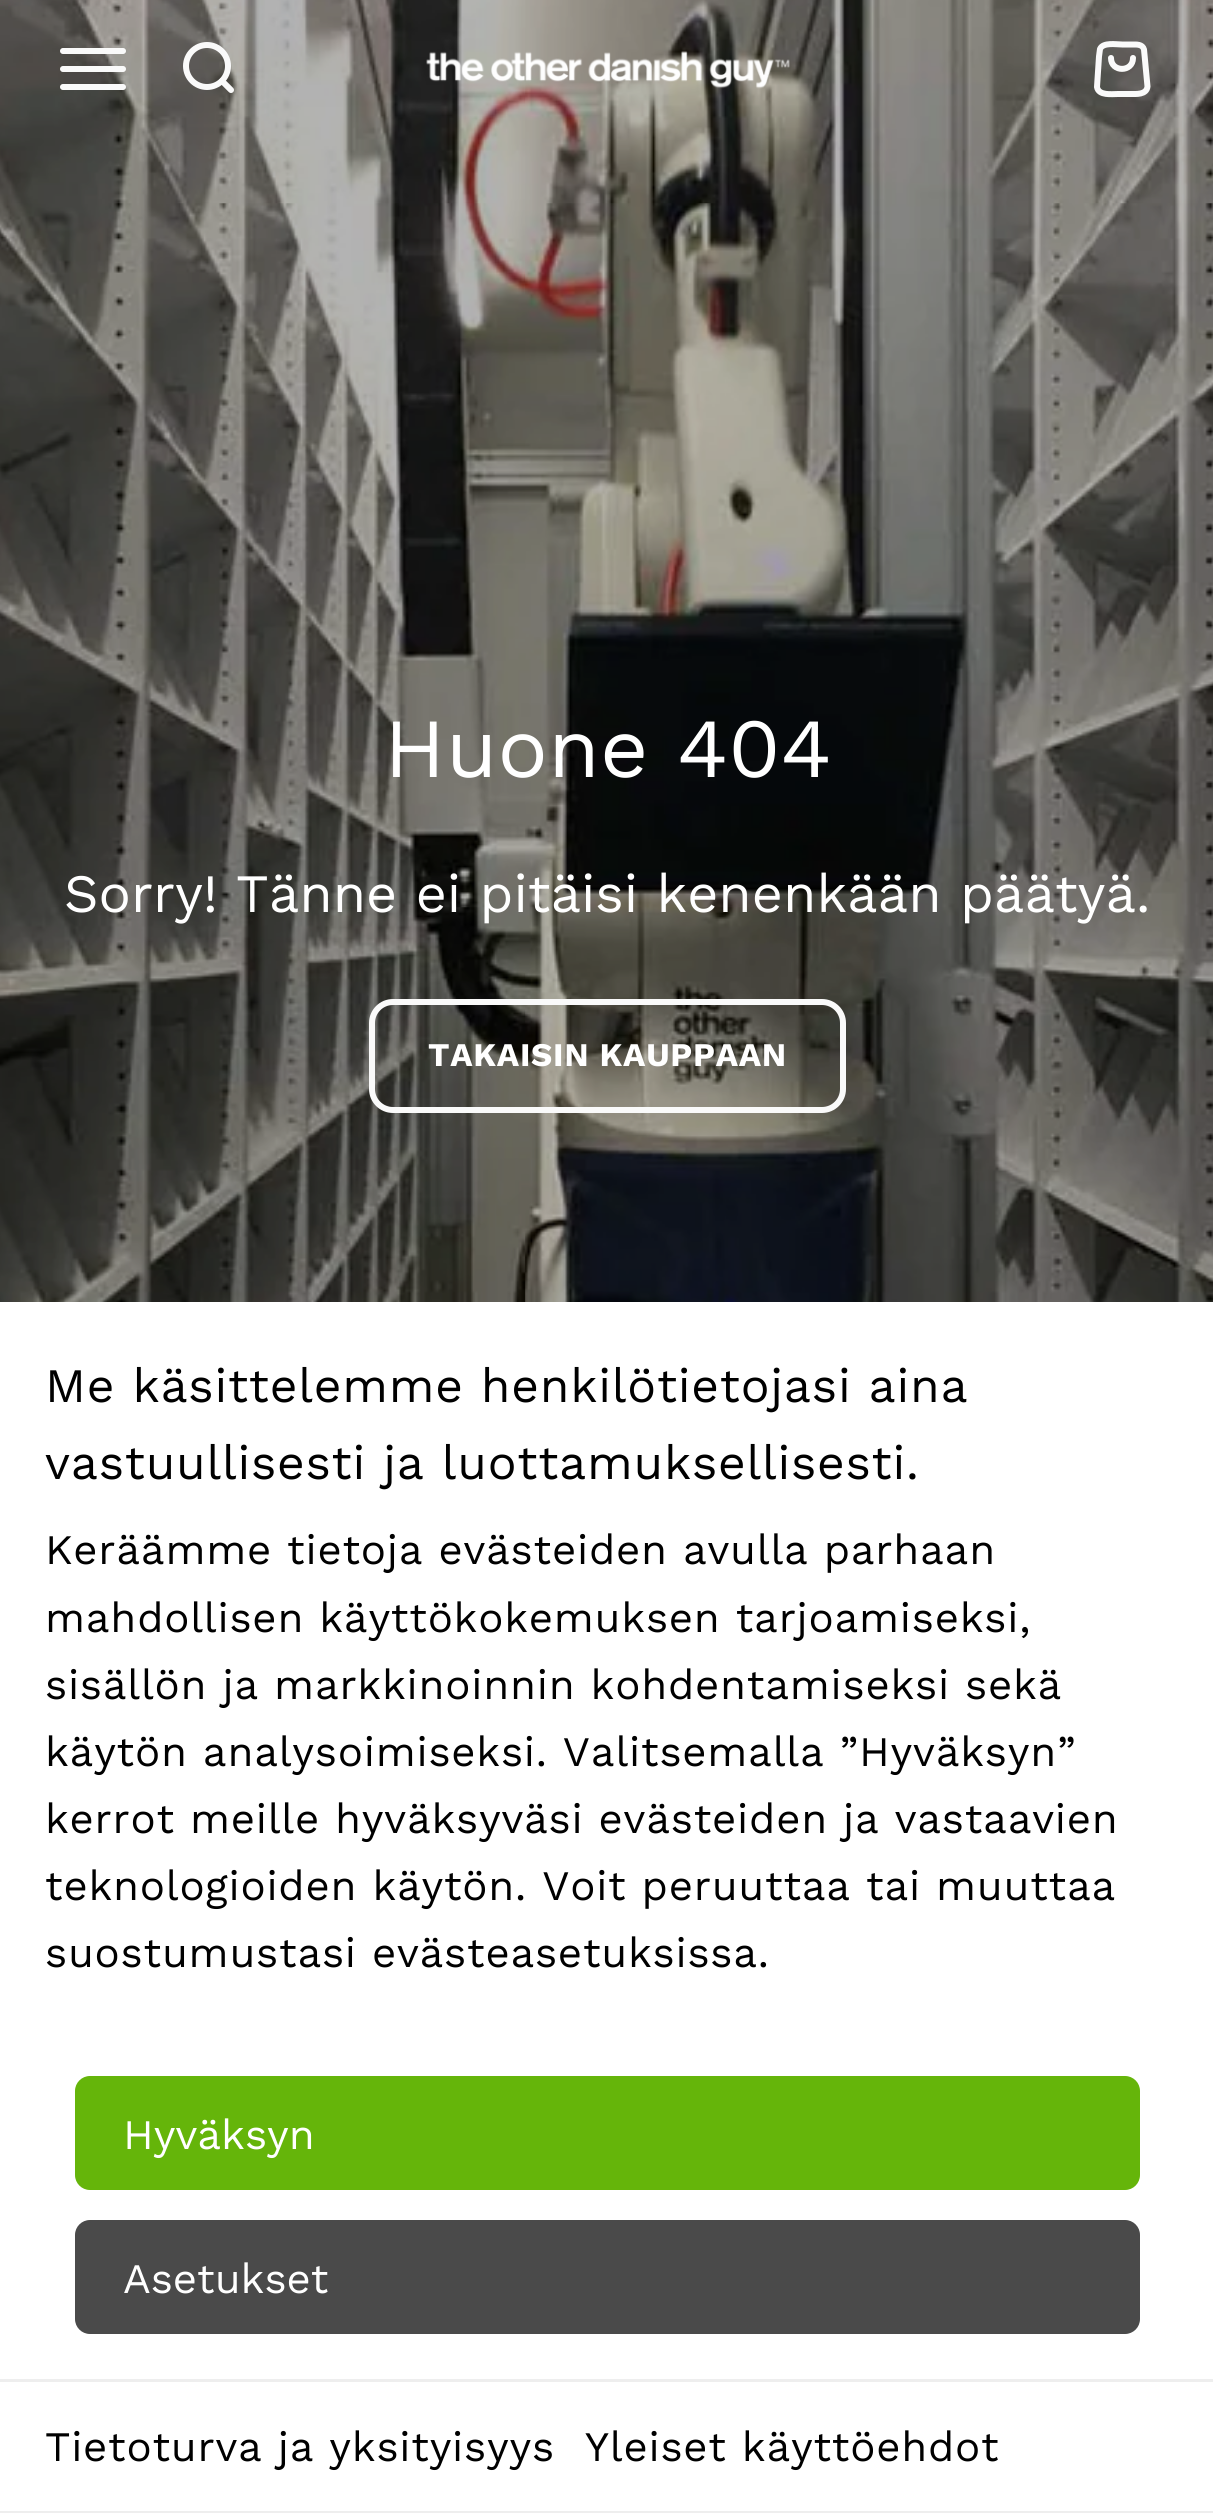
#include <cairo.h>
#include <math.h>
#include <stddef.h>

static cairo_t *c;
static void C(unsigned color){cairo_set_source_rgb(c, (color >> 16) / 255.0, (color >> 8 & 255) / 255.0, (color & 255) / 255.0);}
static void F(const char *family, double size, int italic, int bold){cairo_select_font_face(c, family, italic ? CAIRO_FONT_SLANT_ITALIC : CAIRO_FONT_SLANT_NORMAL,bold ? CAIRO_FONT_WEIGHT_BOLD : CAIRO_FONT_WEIGHT_NORMAL);cairo_set_font_size(c, size);}
static void T(double x, double y, const char *s){cairo_move_to(c, x, y);cairo_show_text(c, s);}
static void L(double x, double y, const char *s, double letter, double word){cairo_move_to(c, x, y);while (*s) {char ch[5] = {0};int n = 0;do ch[n++] = *s++; while ((*s & 0xC0) == 0x80);cairo_show_text(c, ch);cairo_rel_move_to(c, letter + word * (*ch == ' '), 0);}}
static void R(double x, double y, double w, double h){cairo_rectangle(c, x, y, w, h);cairo_fill(c);}
static void Q(double x, double y, double w, double h, double r){cairo_new_sub_path(c);cairo_arc(c, x + w - r, y + h - r, r, 0, M_PI / 2);cairo_arc(c, x + r, y + h - r, r, M_PI / 2, M_PI);cairo_arc(c, x + r, y + r, r, M_PI, 1.5 * M_PI);cairo_arc(c, x + w - r, y + r, r, 1.5 * M_PI, 2 * M_PI);cairo_close_path(c);}
static void I(const char *path, double x, double y, double w, double h){cairo_surface_t *image = cairo_image_surface_create_from_png(path);cairo_save(c);cairo_set_source_surface(c, image, x, y);cairo_rectangle(c, x, y, w, h);cairo_fill(c);cairo_restore(c);cairo_surface_destroy(image);}
int main(void) {
cairo_surface_t *surface = cairo_image_surface_create(CAIRO_FORMAT_RGB24, 1213, 2513);
c = cairo_create(surface);
cairo_font_options_t *options = cairo_font_options_create();
cairo_font_options_set_hint_metrics(options, CAIRO_HINT_METRICS_OFF);
cairo_font_options_set_hint_style(options, CAIRO_HINT_STYLE_NONE);
cairo_set_font_options(c, options);
cairo_set_miter_limit(c, 4);
C(0xffffff);
cairo_paint(c);
I("2.png",0,0,1213,1302);
cairo_new_path(c);
cairo_move_to(c,63,51);
cairo_line_to(c,123,51);
cairo_move_to(c,63,69);
cairo_line_to(c,123,69);
cairo_move_to(c,63,87);
cairo_line_to(c,123,87);
C(0xfafafa);
cairo_set_line_width(c,6);
cairo_set_line_cap(c,CAIRO_LINE_CAP_ROUND);
cairo_stroke(c);
cairo_arc(c,207,66,21,0,2 * M_PI);
cairo_set_line_cap(c,CAIRO_LINE_CAP_BUTT);
cairo_stroke(c);
cairo_new_path(c);
cairo_move_to(c,222,81);
cairo_line_to(c,231,90);
cairo_set_line_cap(c,CAIRO_LINE_CAP_ROUND);
cairo_set_line_join(c,CAIRO_LINE_JOIN_ROUND);
cairo_stroke(c);
I("1.png",426,51,364,38);
cairo_new_path(c);
cairo_move_to(c,1133,58);
cairo_curve_to(c,1133,72.5,1111,72.5,1111,58);
cairo_move_to(c,1099,56.5);
cairo_line_to(c,1097,87);
cairo_curve_to(c,1098.5,96,1112,94,1118,94);
cairo_line_to(c,1130,94);
cairo_curve_to(c,1136,94,1146.5,95,1147.5,86.5);
cairo_line_to(c,1144,49.5);
cairo_curve_to(c,1142.5,44,1136.5,44.5,1132,44.5);
cairo_line_to(c,1122,44.5);
cairo_curve_to(c,1116.5,44.5,1103,42,1100,49);
cairo_close_path(c);
cairo_stroke(c);
F("Work Sans",84,0,0);
C(0xffffff);
T(384,777,"Huone 404");
F("Work Sans",54,0,0);
T(64,912,"Sorry! Tänne ei pitäisi kenenkään päätyä.");
Q(372,1002,471,108,21);
C(0xfafafa);
cairo_set_line_cap(c,CAIRO_LINE_CAP_BUTT);
cairo_set_line_join(c,CAIRO_LINE_JOIN_MITER);
cairo_stroke(c);
F("Work Sans",33,0,1);
C(0xffffff);
L(428,1066,"TAKAISIN KAUPPAAN",.7,0);
F("Work Sans",48,0,0);
C(0x000000);
L(45,1402,"Me käsittelemme henkilötietojasi aina",.78,0);
L(45,1479,"vastuullisesti ja luottamuksellisesti.",.78,0);
F("Work Sans",42,0,0);
L(45,1564,"Keräämme tietoja evästeiden avulla parhaan",.78,0);
L(45,1632,"mahdollisen käyttökokemuksen tarjoamiseksi,",.78,0);
L(45,1699,"sisällön ja markkinoinnin kohdentamiseksi sekä",.78,0);
L(45,1766,"käytön analysoimiseksi. Valitsemalla ”Hyväksyn”",.78,0);
L(45,1833,"kerrot meille hyväksyväsi evästeiden ja vastaavien",.78,0);
L(45,1900,"teknologioiden käytön. Voit peruuttaa tai muuttaa",.78,0);
L(45,1967,"suostumustasi evästeasetuksissa.",.78,0);
C(0x65b50a);
Q(75,2076,1065,114,15);
cairo_fill(c);
C(0xffffff);
T(123,2149,"Hyväksyn");
C(0x4a4a4a);
Q(75,2220,1065,114,15);
cairo_fill(c);
C(0xffffff);
T(123,2293,"Asetukset");
C(0xeeeeee);
R(0,2379,1213,3);
R(0,2511,1213,2);
C(0x000000);
L(45,2461,"Tietoturva ja yksityisyys",.78,0);
L(585,2461,"Yleiset käyttöehdot",.78,0);
cairo_surface_write_to_png(surface, "o.png");
cairo_font_options_destroy(options);
cairo_destroy(c);
cairo_surface_destroy(surface);
return 0;
}
